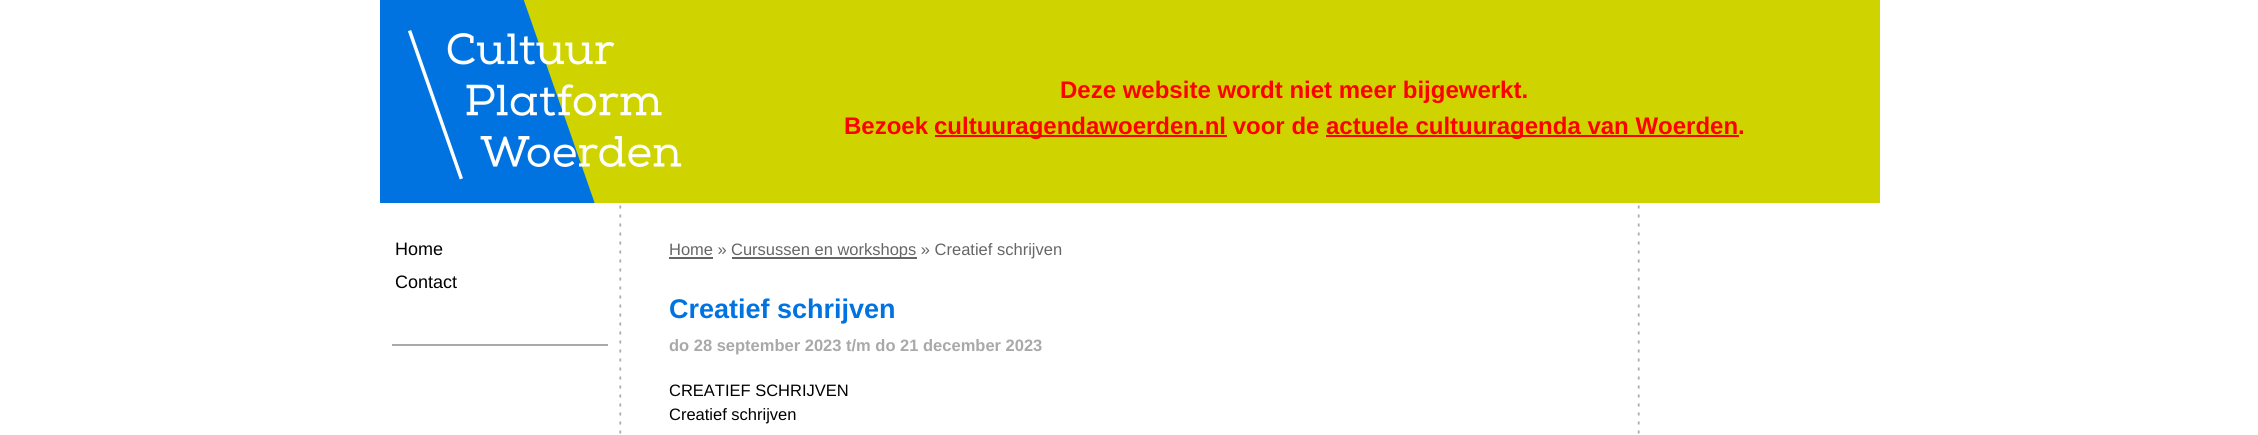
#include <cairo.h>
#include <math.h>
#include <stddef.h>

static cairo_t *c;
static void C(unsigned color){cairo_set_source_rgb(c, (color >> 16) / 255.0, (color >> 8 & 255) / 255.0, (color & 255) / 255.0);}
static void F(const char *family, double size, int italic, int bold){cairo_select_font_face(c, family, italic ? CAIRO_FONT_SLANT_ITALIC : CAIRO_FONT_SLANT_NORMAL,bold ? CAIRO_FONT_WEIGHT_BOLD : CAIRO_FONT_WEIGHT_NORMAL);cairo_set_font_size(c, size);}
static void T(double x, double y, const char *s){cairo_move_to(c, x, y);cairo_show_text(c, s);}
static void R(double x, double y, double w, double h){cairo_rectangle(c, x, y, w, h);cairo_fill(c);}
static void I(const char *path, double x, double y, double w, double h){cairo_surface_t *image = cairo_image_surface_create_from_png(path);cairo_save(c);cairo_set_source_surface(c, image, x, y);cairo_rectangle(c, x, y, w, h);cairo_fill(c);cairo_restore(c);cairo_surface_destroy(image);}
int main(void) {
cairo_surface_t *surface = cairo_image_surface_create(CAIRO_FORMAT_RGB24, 2258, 435);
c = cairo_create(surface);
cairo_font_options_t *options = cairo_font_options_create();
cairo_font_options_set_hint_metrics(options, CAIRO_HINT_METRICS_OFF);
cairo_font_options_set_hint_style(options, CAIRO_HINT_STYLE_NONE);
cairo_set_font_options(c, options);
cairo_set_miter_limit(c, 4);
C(0xffffff);
cairo_paint(c);
I("1.png",619,203,1021,231);
C(0xcfd400);
R(523,0,1357,203);
I("2.png",380,0,302,203);
F("Liberation Sans",24,0,1);
C(0xff0000);
T(1060,98,"Deze website wordt niet meer bijgewerkt.");
T(844,134,"Bezoek");
R(935,135,292,2);
T(934,134,"cultuuragendawoerden.nl voor de");
R(1326,135,413,2);
T(1326,134,"actuele cultuuragenda van Woerden.");
F("Liberation Sans",18,0,0);
C(0x000000);
T(395,255,"Home");
T(395,288,"Contact");
C(0xa9a9a9);
R(392,344,216,2);
F("Liberation Sans",16.5,0,0);
C(0x666666);
T(669,255,"Home »");
R(669,257,44,2);
R(732,257,185,2);
T(731,255,"Cursussen en workshops » Creatief schrijven");
F("Liberation Sans",27,0,1);
C(0x0073e1);
T(669,318,"Creatief schrijven");
F("Liberation Sans",16.5,0,1);
C(0xa9a9a9);
T(669,351,"do 28 september 2023 t/m do 21 december 2023");
F("Liberation Sans",16.5,0,0);
C(0x000000);
T(669,396,"CREATIEF SCHRIJVEN");
T(669,420,"Creatief schrijven");
cairo_surface_write_to_png(surface, "o.png");
cairo_font_options_destroy(options);
cairo_destroy(c);
cairo_surface_destroy(surface);
return 0;
}
